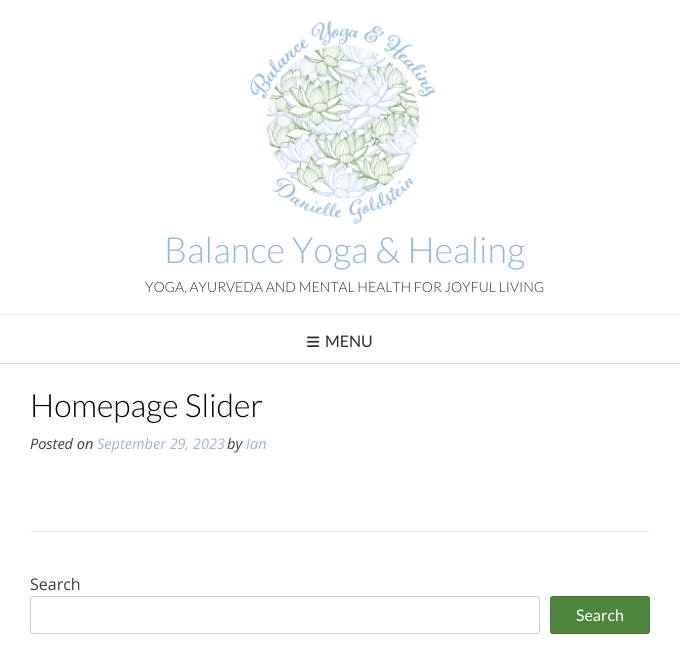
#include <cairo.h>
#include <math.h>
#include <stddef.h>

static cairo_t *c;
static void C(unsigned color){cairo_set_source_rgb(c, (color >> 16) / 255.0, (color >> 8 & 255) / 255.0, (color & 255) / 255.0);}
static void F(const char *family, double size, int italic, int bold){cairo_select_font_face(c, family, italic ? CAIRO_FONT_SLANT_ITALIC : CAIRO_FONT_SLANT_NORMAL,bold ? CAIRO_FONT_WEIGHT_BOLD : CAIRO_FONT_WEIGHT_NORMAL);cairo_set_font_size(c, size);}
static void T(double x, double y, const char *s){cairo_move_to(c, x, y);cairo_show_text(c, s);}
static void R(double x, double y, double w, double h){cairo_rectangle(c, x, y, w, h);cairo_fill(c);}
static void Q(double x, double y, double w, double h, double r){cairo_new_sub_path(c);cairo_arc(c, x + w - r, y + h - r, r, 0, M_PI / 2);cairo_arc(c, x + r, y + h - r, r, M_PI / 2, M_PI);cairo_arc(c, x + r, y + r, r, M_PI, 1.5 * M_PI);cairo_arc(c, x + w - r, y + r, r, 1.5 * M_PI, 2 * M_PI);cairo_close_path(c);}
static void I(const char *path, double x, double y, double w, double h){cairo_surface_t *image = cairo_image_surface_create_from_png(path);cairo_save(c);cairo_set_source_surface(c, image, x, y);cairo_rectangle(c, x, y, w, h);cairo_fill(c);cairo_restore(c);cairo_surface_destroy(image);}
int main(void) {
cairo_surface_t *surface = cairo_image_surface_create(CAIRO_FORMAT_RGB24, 680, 651);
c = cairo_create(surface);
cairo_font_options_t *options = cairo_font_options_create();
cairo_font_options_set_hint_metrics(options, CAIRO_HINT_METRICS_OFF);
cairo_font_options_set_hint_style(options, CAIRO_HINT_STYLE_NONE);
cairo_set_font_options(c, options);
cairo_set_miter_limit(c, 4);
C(0xffffff);
cairo_paint(c);
C(0xdbdbdb);
R(0,363,680,1);
I("1.png",250,20,186,205);
F("Lato Light",36,0,0);
C(0x97b9da);
T(164,263,"Balance Yoga & Healing");
F("Lato Light",14,0,0);
C(0x2d2d2d);
T(145,292,"YOGA, AYURVEDA AND MENTAL HEALTH FOR JOYFUL LIVING");
C(0xebebeb);
R(0,314,680,1);
I("2.png",307,336,13,11);
F("Lato",16,0,0);
C(0x2d2d2d);
T(325,347,"MENU");
F("Lato Light",32,0,0);
C(0x000000);
T(30,417,"Homepage Slider");
F("Open Sans",14.5,1,0);
C(0x3c3c3c);
T(30,449,"Posted on");
C(0x97b9da);
T(97,449,"September 29, 2023");
C(0x3c3c3c);
T(227,449,"by");
C(0x97b9da);
T(246,449,"Ian");
C(0xebebeb);
R(30,531,620,1);
F("Open Sans",16,0,0);
C(0x3c3c3c);
T(30,590,"Search");
Q(30.5,596.5,509,37,2.5);
C(0xcccccc);
cairo_set_line_width(c,1);
cairo_stroke(c);
C(0x4f863e);
Q(550,596,100,38,3);
cairo_fill(c);
Q(550.5,596.5,99,37,2.5);
cairo_set_source_rgba(c,0,0,0,0.14);
cairo_stroke(c);
F("Lato",16,0,0);
C(0xffffff);
T(576,621,"Search");
cairo_surface_write_to_png(surface, "o.png");
cairo_font_options_destroy(options);
cairo_destroy(c);
cairo_surface_destroy(surface);
return 0;
}
